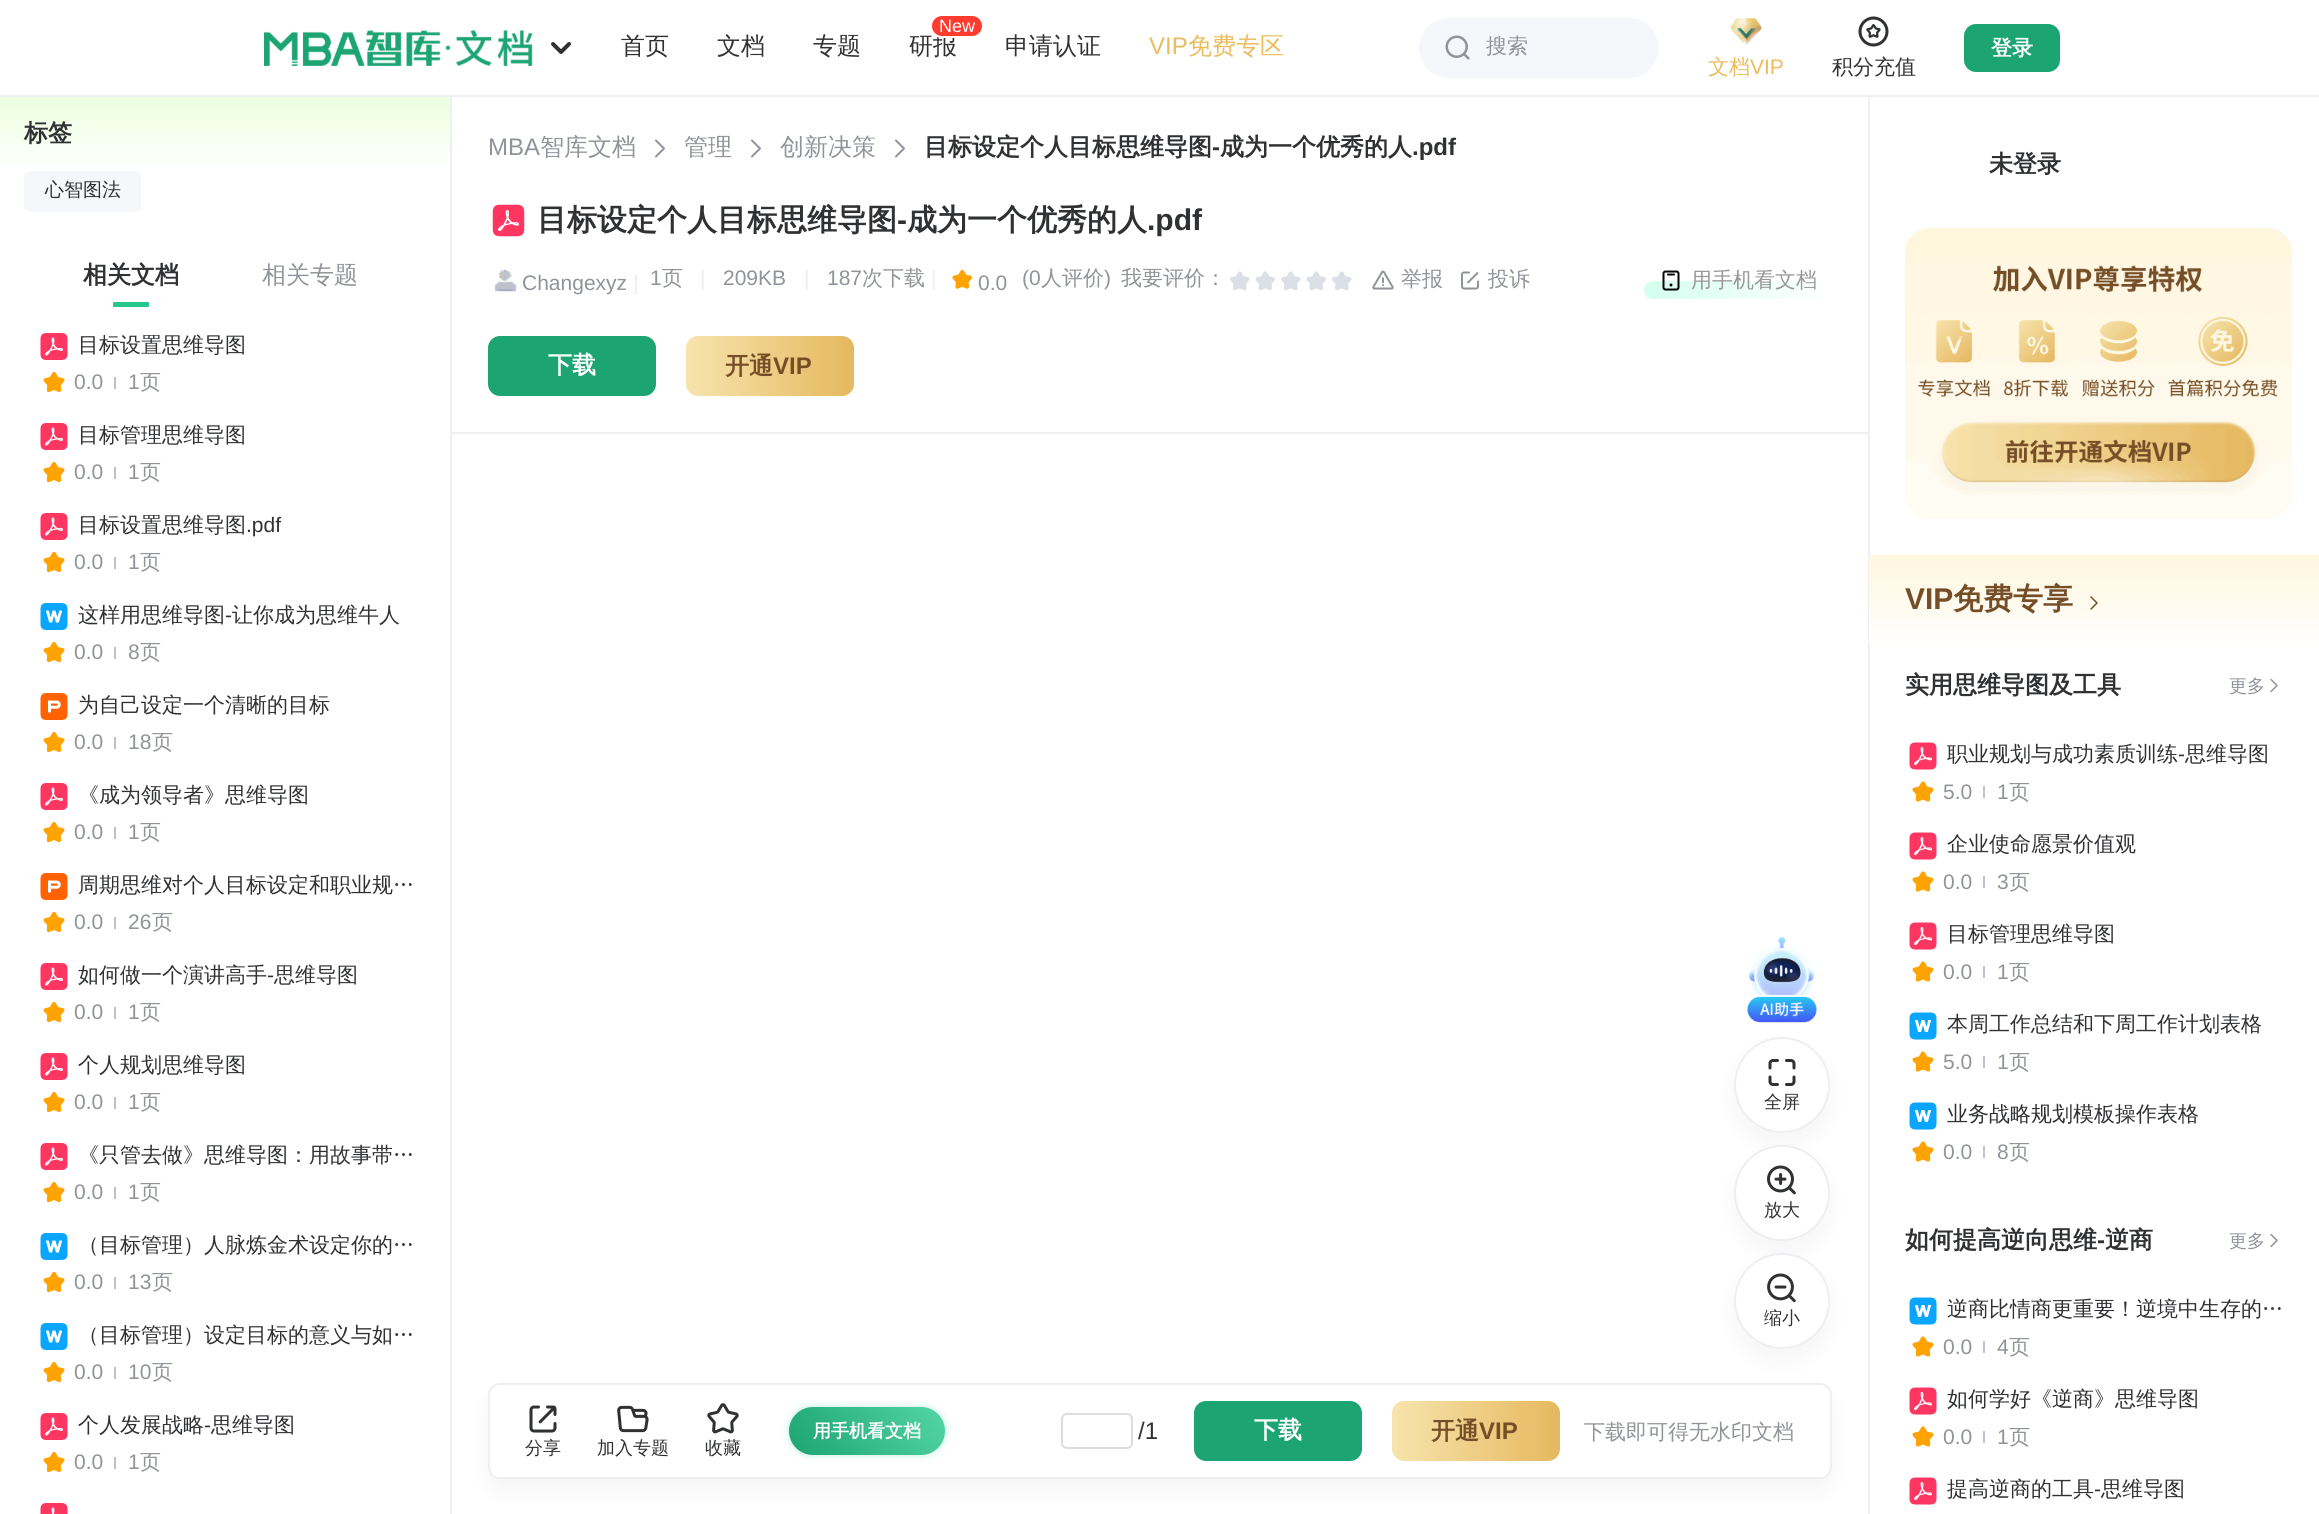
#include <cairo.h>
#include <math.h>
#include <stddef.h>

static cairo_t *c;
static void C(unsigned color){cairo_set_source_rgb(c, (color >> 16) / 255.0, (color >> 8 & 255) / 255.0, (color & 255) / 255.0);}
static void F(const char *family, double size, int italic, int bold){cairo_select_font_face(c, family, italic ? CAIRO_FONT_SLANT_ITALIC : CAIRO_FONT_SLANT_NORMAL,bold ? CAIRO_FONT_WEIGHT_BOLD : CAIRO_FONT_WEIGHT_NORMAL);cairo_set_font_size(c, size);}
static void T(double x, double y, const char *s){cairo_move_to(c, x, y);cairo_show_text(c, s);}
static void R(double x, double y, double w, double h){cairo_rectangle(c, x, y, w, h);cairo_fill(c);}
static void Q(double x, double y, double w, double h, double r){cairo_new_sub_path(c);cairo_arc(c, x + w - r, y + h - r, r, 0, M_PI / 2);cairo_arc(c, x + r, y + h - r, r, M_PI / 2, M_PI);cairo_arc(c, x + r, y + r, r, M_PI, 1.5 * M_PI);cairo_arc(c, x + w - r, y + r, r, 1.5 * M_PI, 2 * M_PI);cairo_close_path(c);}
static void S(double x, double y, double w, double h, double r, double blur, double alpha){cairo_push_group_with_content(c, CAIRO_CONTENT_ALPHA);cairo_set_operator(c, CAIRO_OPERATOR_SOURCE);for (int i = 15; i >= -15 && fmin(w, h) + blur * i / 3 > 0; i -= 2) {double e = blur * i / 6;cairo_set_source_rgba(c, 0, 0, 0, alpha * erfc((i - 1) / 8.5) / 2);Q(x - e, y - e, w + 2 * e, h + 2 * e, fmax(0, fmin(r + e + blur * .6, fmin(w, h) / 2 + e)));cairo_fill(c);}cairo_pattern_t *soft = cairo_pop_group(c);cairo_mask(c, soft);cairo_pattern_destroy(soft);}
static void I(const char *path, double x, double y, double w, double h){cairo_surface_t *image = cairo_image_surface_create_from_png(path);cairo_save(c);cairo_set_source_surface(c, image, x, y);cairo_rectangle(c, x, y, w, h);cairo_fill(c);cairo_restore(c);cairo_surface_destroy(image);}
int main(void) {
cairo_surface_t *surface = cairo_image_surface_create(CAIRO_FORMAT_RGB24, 2319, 1514);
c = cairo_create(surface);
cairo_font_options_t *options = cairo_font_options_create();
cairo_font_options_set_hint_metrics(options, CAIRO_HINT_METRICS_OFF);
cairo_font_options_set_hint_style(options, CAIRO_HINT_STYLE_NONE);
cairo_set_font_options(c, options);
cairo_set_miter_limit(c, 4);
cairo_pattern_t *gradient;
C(0xffffff);
cairo_paint(c);
C(0xedeff2);
R(1868,96,2,1418);
R(450,96,2,1418);
R(0,95,2319,2);
I("1.png",264,30,269,36);
I("2.png",551,42,20,12);
F("WenQuanYi Zen Hei Medium",24,0,0);
C(0x303133);
T(621,54,"首页");
T(717,54,"文档");
T(813,54,"专题");
T(909,54,"研报");
C(0xff3b30);
Q(931,15,52,22,11);
cairo_fill_preserve(c);
C(0xffffff);
cairo_stroke(c);
F("Liberation Sans",18,0,0);
T(939,32,"New");
F("WenQuanYi Zen Hei Medium",24,0,0);
C(0x303133);
T(1005,54,"申请认证");
F("Liberation Sans",24,0,0);
C(0xeabc5c);
T(1149,54,"VIP");
F("WenQuanYi Zen Hei Medium",24,0,0);
T(1188,54,"免费专区");
C(0xf5f7fa);
Q(1419,18,240,60,30);
cairo_fill(c);
I("3.png",1445,35,25,25);
F("WenQuanYi Zen Hei Medium",21,0,0);
C(0x909399);
T(1486,53,"搜索");
C(0x1ca472);
Q(1964,24,96,48,12);
cairo_fill(c);
F("WenQuanYi Zen Hei",21,0,1);
C(0xffffff);
T(1991,55,"登录");
I("4.png",1730,18,32,27);
F("WenQuanYi Zen Hei Medium",21,0,0);
C(0xeabc5c);
T(1708,74,"文档");
F("Liberation Sans",21,0,0);
T(1750,74,"VIP");
I("5.png",1858,16,31,31);
F("WenQuanYi Zen Hei Medium",21,0,0);
C(0x303133);
T(1832,74,"积分充值");
gradient = cairo_pattern_create_linear(225,96,225,171);
cairo_pattern_add_color_stop_rgba(gradient,0,0.922,1,0.867,1);
cairo_pattern_add_color_stop_rgba(gradient,1,1,1,1,1);
cairo_set_source(c,gradient);
cairo_pattern_destroy(gradient);
R(0,97,450,68);
F("WenQuanYi Zen Hei",24,0,1);
C(0x303133);
T(24,141,"标签");
C(0xf5f7fa);
Q(24,171,117,41,6);
cairo_fill(c);
F("WenQuanYi Zen Hei Medium",19,0,0);
C(0x303133);
T(45,196,"心智图法");
F("WenQuanYi Zen Hei",24,0,1);
T(83,283,"相关文档");
C(0x25c68b);
Q(113,302,36,5,1);
cairo_fill(c);
F("WenQuanYi Zen Hei Medium",24,0,0);
C(0x909399);
T(262,283,"相关专题");
I("6.png",40,333,28,27);
F("WenQuanYi Zen Hei Medium",21,0,0);
C(0x303133);
T(78,352,"目标设置思维导图");
I("7.png",43,372,22,21);
F("Liberation Sans",21,0,0);
C(0x909399);
T(74,389,"0.0");
C(0xbfc2cc);
R(114,377,2,12);
C(0x909399);
T(128,389,"1");
F("WenQuanYi Zen Hei Medium",21,0,0);
T(140,389,"页");
I("6.png",40,423,28,27);
C(0x303133);
T(78,442,"目标管理思维导图");
I("7.png",43,462,22,21);
F("Liberation Sans",21,0,0);
C(0x909399);
T(74,479,"0.0");
C(0xbfc2cc);
R(114,467,2,12);
C(0x909399);
T(128,479,"1");
F("WenQuanYi Zen Hei Medium",21,0,0);
T(140,479,"页");
I("6.png",40,513,28,27);
C(0x303133);
T(78,532,"目标设置思维导图");
F("Liberation Sans",21,0,0);
T(246,532,".pdf");
I("7.png",43,552,22,21);
C(0x909399);
T(74,569,"0.0");
C(0xbfc2cc);
R(114,557,2,12);
C(0x909399);
T(128,569,"1");
F("WenQuanYi Zen Hei Medium",21,0,0);
T(140,569,"页");
I("8.png",40,603,28,27);
C(0x303133);
T(78,622,"这样用思维导图");
F("Liberation Sans",21,0,0);
T(225,622,"-");
F("WenQuanYi Zen Hei Medium",21,0,0);
T(232,622,"让你成为思维牛人");
I("7.png",43,642,22,21);
F("Liberation Sans",21,0,0);
C(0x909399);
T(74,659,"0.0");
C(0xbfc2cc);
R(114,647,2,12);
C(0x909399);
T(128,659,"8");
F("WenQuanYi Zen Hei Medium",21,0,0);
T(140,659,"页");
I("9.png",40,693,28,27);
C(0x303133);
T(78,712,"为自己设定一个清晰的目标");
I("7.png",43,732,22,21);
F("Liberation Sans",21,0,0);
C(0x909399);
T(74,749,"0.0");
C(0xbfc2cc);
R(114,737,2,12);
C(0x909399);
T(128,749,"18");
F("WenQuanYi Zen Hei Medium",21,0,0);
T(152,749,"页");
I("6.png",40,783,28,27);
C(0x303133);
T(78,802,"《成为领导者》思维导图");
I("7.png",43,822,22,21);
F("Liberation Sans",21,0,0);
C(0x909399);
T(74,839,"0.0");
C(0xbfc2cc);
R(114,827,2,12);
C(0x909399);
T(128,839,"1");
F("WenQuanYi Zen Hei Medium",21,0,0);
T(140,839,"页");
I("9.png",40,873,28,27);
C(0x303133);
T(78,892,"周期思维对个人目标设定和职业规…");
I("7.png",43,912,22,21);
F("Liberation Sans",21,0,0);
C(0x909399);
T(74,929,"0.0");
C(0xbfc2cc);
R(114,917,2,12);
C(0x909399);
T(128,929,"26");
F("WenQuanYi Zen Hei Medium",21,0,0);
T(152,929,"页");
I("6.png",40,963,28,27);
C(0x303133);
T(78,982,"如何做一个演讲高手");
F("Liberation Sans",21,0,0);
T(267,982,"-");
F("WenQuanYi Zen Hei Medium",21,0,0);
T(274,982,"思维导图");
I("7.png",43,1002,22,21);
F("Liberation Sans",21,0,0);
C(0x909399);
T(74,1019,"0.0");
C(0xbfc2cc);
R(114,1007,2,12);
C(0x909399);
T(128,1019,"1");
F("WenQuanYi Zen Hei Medium",21,0,0);
T(140,1019,"页");
I("6.png",40,1053,28,27);
C(0x303133);
T(78,1072,"个人规划思维导图");
I("7.png",43,1092,22,21);
F("Liberation Sans",21,0,0);
C(0x909399);
T(74,1109,"0.0");
C(0xbfc2cc);
R(114,1097,2,12);
C(0x909399);
T(128,1109,"1");
F("WenQuanYi Zen Hei Medium",21,0,0);
T(140,1109,"页");
I("6.png",40,1143,28,27);
C(0x303133);
T(78,1162,"《只管去做》思维导图：用故事带…");
I("7.png",43,1182,22,21);
F("Liberation Sans",21,0,0);
C(0x909399);
T(74,1199,"0.0");
C(0xbfc2cc);
R(114,1187,2,12);
C(0x909399);
T(128,1199,"1");
F("WenQuanYi Zen Hei Medium",21,0,0);
T(140,1199,"页");
I("8.png",40,1233,28,27);
C(0x303133);
T(78,1252,"（目标管理）人脉炼金术设定你的…");
I("7.png",43,1272,22,21);
F("Liberation Sans",21,0,0);
C(0x909399);
T(74,1289,"0.0");
C(0xbfc2cc);
R(114,1277,2,12);
C(0x909399);
T(128,1289,"13");
F("WenQuanYi Zen Hei Medium",21,0,0);
T(152,1289,"页");
I("8.png",40,1323,28,27);
C(0x303133);
T(78,1342,"（目标管理）设定目标的意义与如…");
I("7.png",43,1362,22,21);
F("Liberation Sans",21,0,0);
C(0x909399);
T(74,1379,"0.0");
C(0xbfc2cc);
R(114,1367,2,12);
C(0x909399);
T(128,1379,"10");
F("WenQuanYi Zen Hei Medium",21,0,0);
T(152,1379,"页");
I("6.png",40,1413,28,27);
C(0x303133);
T(78,1432,"个人发展战略");
F("Liberation Sans",21,0,0);
T(204,1432,"-");
F("WenQuanYi Zen Hei Medium",21,0,0);
T(211,1432,"思维导图");
I("7.png",43,1452,22,21);
F("Liberation Sans",21,0,0);
C(0x909399);
T(74,1469,"0.0");
C(0xbfc2cc);
R(114,1457,2,12);
C(0x909399);
T(128,1469,"1");
F("WenQuanYi Zen Hei Medium",21,0,0);
T(140,1469,"页");
I("10.png",40,1503,28,11);
C(0xedeff2);
R(452,432,1416,2);
F("Liberation Sans",24,0,0);
C(0x909399);
T(488,155,"MBA");
F("WenQuanYi Zen Hei Medium",24,0,0);
T(540,155,"智库文档");
I("11.png",655,139,10,19);
T(684,155,"管理");
I("11.png",751,139,10,19);
T(780,155,"创新决策");
I("11.png",895,139,10,19);
F("WenQuanYi Zen Hei",24,0,1);
C(0x303133);
T(924,155,"目标设定个人目标思维导图");
F("Liberation Sans",24,0,1);
T(1212,155,"-");
F("WenQuanYi Zen Hei",24,0,1);
T(1220,155,"成为一个优秀的人");
F("Liberation Sans",24,0,1);
T(1412,155,".pdf");
I("12.png",492,204,33,33);
F("WenQuanYi Zen Hei",30,0,1);
T(537,230,"目标设定个人目标思维导图");
F("Liberation Sans",30,0,1);
T(897,230,"-");
F("WenQuanYi Zen Hei",30,0,1);
T(907,230,"成为一个优秀的人");
F("Liberation Sans",30,0,1);
T(1147,230,".pdf");
I("13.png",494,269,23,23);
F("Liberation Sans",21,0,0);
C(0x909399);
T(522,290,"Changexyz");
C(0xececed);
T(633,290,"|");
C(0x909399);
T(650,285,"1");
F("WenQuanYi Zen Hei Medium",21,0,0);
T(662,285,"页");
F("Liberation Sans",21,0,0);
C(0xececed);
T(700,285,"|");
C(0x909399);
T(723,285,"209KB");
C(0xececed);
T(804,285,"|");
C(0x909399);
T(827,285,"187");
F("WenQuanYi Zen Hei Medium",21,0,0);
T(862,285,"次下载");
F("Liberation Sans",21,0,0);
C(0xececed);
T(931,285,"|");
I("14.png",952,269,21,20);
C(0x909399);
T(978,290,"0.0");
T(1022,285,"(0");
F("WenQuanYi Zen Hei Medium",21,0,0);
T(1041,285,"人评价");
F("Liberation Sans",21,0,0);
T(1104,285,")");
F("WenQuanYi Zen Hei Medium",21,0,0);
T(1121,285,"我要评价：");
I("15.png",1230,271,20,20);
I("16.png",1255,271,20,20);
I("15.png",1281,271,20,20);
I("16.png",1306,271,20,20);
I("15.png",1332,271,20,20);
I("17.png",1372,270,22,20);
T(1401,286,"举报");
I("18.png",1461,271,18,19);
T(1488,286,"投诉");
gradient = cairo_pattern_create_linear(1644,290,1832,290);
cairo_pattern_add_color_stop_rgba(gradient,0,0.831,1,0.937,1);
cairo_pattern_add_color_stop_rgba(gradient,1,1,1,1,1);
cairo_set_source(c,gradient);
cairo_pattern_destroy(gradient);
Q(1644,281,188,18,9);
cairo_fill(c);
I("19.png",1662,270,18,21);
C(0x969796);
T(1691,287,"用手机看文档");
C(0x1ca472);
Q(488,336,168,60,12);
cairo_fill(c);
F("WenQuanYi Zen Hei",24,0,1);
C(0xffffff);
T(548,373,"下载");
gradient = cairo_pattern_create_linear(686,366,854,366);
cairo_pattern_add_color_stop_rgba(gradient,0,0.969,0.894,0.678,1);
cairo_pattern_add_color_stop_rgba(gradient,1,0.898,0.722,0.373,1);
cairo_set_source(c,gradient);
cairo_pattern_destroy(gradient);
Q(686,336,168,60,12);
cairo_fill(c);
C(0x754e27);
T(725,374,"开通");
F("Liberation Sans",24,0,1);
T(773,374,"VIP");
F("WenQuanYi Zen Hei",24,0,1);
C(0x303133);
T(1989,172,"未登录");
I("20.png",1905,228,387,291);
gradient = cairo_pattern_create_linear(2094,555,2094,645);
cairo_pattern_add_color_stop_rgba(gradient,0,1,0.965,0.867,1);
cairo_pattern_add_color_stop_rgba(gradient,1,1,1,1,1);
cairo_set_source(c,gradient);
cairo_pattern_destroy(gradient);
R(1869,555,450,90);
F("Liberation Sans",30,0,1);
C(0x754e27);
T(1905,609,"VIP");
F("WenQuanYi Zen Hei",30,0,1);
T(1953,609,"免费专享");
I("21.png",2090,596,8,14);
F("WenQuanYi Zen Hei",24,0,1);
C(0x303133);
T(1905,693,"实用思维导图及工具");
F("WenQuanYi Zen Hei Medium",18,0,0);
C(0x909399);
T(2229,692,"更多");
I("22.png",2270,678,8,15);
I("23.png",1909,742,28,28);
F("WenQuanYi Zen Hei Medium",21,0,0);
C(0x303133);
T(1947,761,"职业规划与成功素质训练");
F("Liberation Sans",21,0,0);
T(2178,761,"-");
F("WenQuanYi Zen Hei Medium",21,0,0);
T(2185,761,"思维导图");
I("24.png",1912,781,22,21);
F("Liberation Sans",21,0,0);
C(0x909399);
T(1943,799,"5.0");
C(0xbfc2cc);
R(1983,786,2,12);
C(0x909399);
T(1997,799,"1");
F("WenQuanYi Zen Hei Medium",21,0,0);
T(2009,799,"页");
I("23.png",1909,832,28,28);
C(0x303133);
T(1947,851,"企业使命愿景价值观");
I("24.png",1912,871,22,21);
F("Liberation Sans",21,0,0);
C(0x909399);
T(1943,889,"0.0");
C(0xbfc2cc);
R(1983,876,2,12);
C(0x909399);
T(1997,889,"3");
F("WenQuanYi Zen Hei Medium",21,0,0);
T(2009,889,"页");
I("23.png",1909,922,28,28);
C(0x303133);
T(1947,941,"目标管理思维导图");
I("24.png",1912,961,22,21);
F("Liberation Sans",21,0,0);
C(0x909399);
T(1943,979,"0.0");
C(0xbfc2cc);
R(1983,966,2,12);
C(0x909399);
T(1997,979,"1");
F("WenQuanYi Zen Hei Medium",21,0,0);
T(2009,979,"页");
I("25.png",1909,1012,28,28);
C(0x303133);
T(1947,1031,"本周工作总结和下周工作计划表格");
I("24.png",1912,1051,22,21);
F("Liberation Sans",21,0,0);
C(0x909399);
T(1943,1069,"5.0");
C(0xbfc2cc);
R(1983,1056,2,12);
C(0x909399);
T(1997,1069,"1");
F("WenQuanYi Zen Hei Medium",21,0,0);
T(2009,1069,"页");
I("25.png",1909,1102,28,28);
C(0x303133);
T(1947,1121,"业务战略规划模板操作表格");
I("24.png",1912,1141,22,21);
F("Liberation Sans",21,0,0);
C(0x909399);
T(1943,1159,"0.0");
C(0xbfc2cc);
R(1983,1146,2,12);
C(0x909399);
T(1997,1159,"8");
F("WenQuanYi Zen Hei Medium",21,0,0);
T(2009,1159,"页");
F("WenQuanYi Zen Hei",24,0,1);
C(0x303133);
T(1905,1248,"如何提高逆向思维");
F("Liberation Sans",24,0,1);
T(2097,1248,"-");
F("WenQuanYi Zen Hei",24,0,1);
T(2105,1248,"逆商");
F("WenQuanYi Zen Hei Medium",18,0,0);
C(0x909399);
T(2229,1247,"更多");
I("22.png",2270,1233,8,15);
I("25.png",1909,1297,28,28);
F("WenQuanYi Zen Hei Medium",21,0,0);
C(0x303133);
T(1947,1316,"逆商比情商更重要！逆境中生存的…");
I("24.png",1912,1336,22,21);
F("Liberation Sans",21,0,0);
C(0x909399);
T(1943,1354,"0.0");
C(0xbfc2cc);
R(1983,1341,2,12);
C(0x909399);
T(1997,1354,"4");
F("WenQuanYi Zen Hei Medium",21,0,0);
T(2009,1354,"页");
I("23.png",1909,1387,28,28);
C(0x303133);
T(1947,1406,"如何学好《逆商》思维导图");
I("24.png",1912,1426,22,21);
F("Liberation Sans",21,0,0);
C(0x909399);
T(1943,1444,"0.0");
C(0xbfc2cc);
R(1983,1431,2,12);
C(0x909399);
T(1997,1444,"1");
F("WenQuanYi Zen Hei Medium",21,0,0);
T(2009,1444,"页");
I("23.png",1909,1477,28,28);
C(0x303133);
T(1947,1496,"提高逆商的工具");
F("Liberation Sans",21,0,0);
T(2094,1496,"-");
F("WenQuanYi Zen Hei Medium",21,0,0);
T(2101,1496,"思维导图");
C(0x000000);
S(488,1395,1344,96,12,12,.04);
C(0xffffff);
Q(489,1384,1342,94,11);
cairo_fill_preserve(c);
C(0xedeff2);
cairo_stroke(c);
I("26.png",1746,936,71,87);
C(0x000000);
S(1734,1049,96,96,48,12,.04);
C(0xffffff);
cairo_arc(c,1782,1085,47,0,2 * M_PI);
cairo_fill_preserve(c);
C(0xedeff2);
cairo_stroke(c);
I("27.png",1768,1059,28,27);
F("WenQuanYi Zen Hei Medium",18,0,0);
C(0x303133);
T(1764,1108,"全屏");
C(0x000000);
S(1734,1157,96,96,48,12,.04);
C(0xffffff);
cairo_arc(c,1782,1193,47,0,2 * M_PI);
cairo_fill_preserve(c);
C(0xedeff2);
cairo_stroke(c);
I("28.png",1767,1165,29,30);
C(0x303133);
T(1764,1216,"放大");
C(0x000000);
S(1734,1265,96,96,48,12,.04);
C(0xffffff);
cairo_arc(c,1782,1301,47,0,2 * M_PI);
cairo_fill_preserve(c);
C(0xedeff2);
cairo_stroke(c);
I("29.png",1767,1273,29,30);
C(0x303133);
T(1764,1324,"缩小");
C(0x54dcaa);
S(789,1407,156,48,24,4,.4);
gradient = cairo_pattern_create_linear(802,1475,932,1387);
cairo_pattern_add_color_stop_rgba(gradient,0,0.11,0.643,0.447,1);
cairo_pattern_add_color_stop_rgba(gradient,1,0.329,0.835,0.647,1);
cairo_set_source(c,gradient);
cairo_pattern_destroy(gradient);
Q(789,1407,156,48,24);
cairo_fill(c);
F("WenQuanYi Zen Hei",18,0,1);
C(0xffffff);
T(813,1437,"用手机看文档");
I("30.png",529,1405,28,28);
F("WenQuanYi Zen Hei Medium",18,0,0);
C(0x303133);
T(525,1454,"分享");
I("31.png",617,1405,32,28);
T(597,1454,"加入专题");
I("32.png",707,1403,32,31);
T(705,1454,"收藏");
Q(1062,1414,70,34,5);
C(0xdddddd);
cairo_stroke(c);
F("Liberation Sans",24,0,0);
C(0x303133);
T(1138,1439,"/1");
C(0x1ca472);
Q(1194,1401,168,60,12);
cairo_fill(c);
F("WenQuanYi Zen Hei",24,0,1);
C(0xffffff);
T(1254,1438,"下载");
gradient = cairo_pattern_create_linear(1392,1431,1560,1431);
cairo_pattern_add_color_stop_rgba(gradient,0,0.969,0.894,0.678,1);
cairo_pattern_add_color_stop_rgba(gradient,1,0.898,0.722,0.373,1);
cairo_set_source(c,gradient);
cairo_pattern_destroy(gradient);
Q(1392,1401,168,60,12);
cairo_fill(c);
C(0x754e27);
T(1431,1439,"开通");
F("Liberation Sans",24,0,1);
T(1479,1439,"VIP");
F("WenQuanYi Zen Hei Medium",21,0,0);
C(0x909399);
T(1584,1439,"下载即可得无水印文档");
cairo_surface_write_to_png(surface, "o.png");
cairo_font_options_destroy(options);
cairo_destroy(c);
cairo_surface_destroy(surface);
return 0;
}
